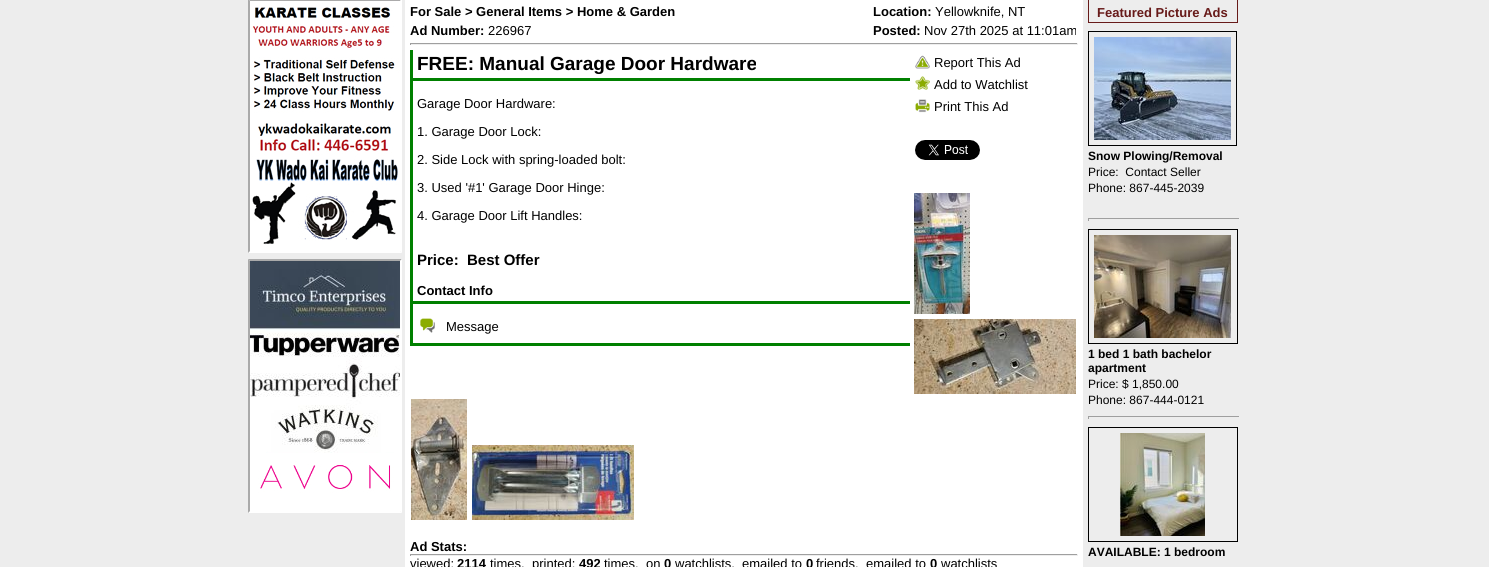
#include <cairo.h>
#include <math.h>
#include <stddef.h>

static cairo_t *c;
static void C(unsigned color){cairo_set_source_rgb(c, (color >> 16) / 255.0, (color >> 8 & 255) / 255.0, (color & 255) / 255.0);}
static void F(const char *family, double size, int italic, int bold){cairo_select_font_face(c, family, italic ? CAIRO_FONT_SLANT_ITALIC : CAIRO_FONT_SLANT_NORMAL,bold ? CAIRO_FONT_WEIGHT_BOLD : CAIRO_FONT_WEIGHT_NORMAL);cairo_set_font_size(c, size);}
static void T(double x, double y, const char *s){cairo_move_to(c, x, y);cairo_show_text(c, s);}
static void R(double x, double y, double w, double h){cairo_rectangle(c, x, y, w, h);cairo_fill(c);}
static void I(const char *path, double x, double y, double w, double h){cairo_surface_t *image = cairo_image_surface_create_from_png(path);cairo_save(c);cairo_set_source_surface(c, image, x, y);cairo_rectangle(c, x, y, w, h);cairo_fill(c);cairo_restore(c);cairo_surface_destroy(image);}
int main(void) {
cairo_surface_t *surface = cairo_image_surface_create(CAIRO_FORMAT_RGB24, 1489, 567);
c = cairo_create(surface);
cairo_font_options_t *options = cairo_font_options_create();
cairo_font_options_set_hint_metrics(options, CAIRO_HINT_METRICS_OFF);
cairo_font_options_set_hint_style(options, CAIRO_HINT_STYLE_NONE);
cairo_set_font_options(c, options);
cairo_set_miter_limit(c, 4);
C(0xededed);
cairo_paint(c);
C(0xffffff);
R(405,0,678,567);
C(0xaaaaaa);
cairo_new_path(c);
cairo_move_to(c,248,-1);
cairo_line_to(c,402,-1);
cairo_line_to(c,400,1);
cairo_line_to(c,250,1);
cairo_close_path(c);
cairo_fill(c);
C(0xffffff);
cairo_new_path(c);
cairo_move_to(c,402,-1);
cairo_line_to(c,402,253);
cairo_line_to(c,400,251);
cairo_line_to(c,400,1);
cairo_close_path(c);
cairo_fill(c);
cairo_new_path(c);
cairo_move_to(c,402,253);
cairo_line_to(c,248,253);
cairo_line_to(c,250,251);
cairo_line_to(c,400,251);
cairo_close_path(c);
cairo_fill(c);
C(0xaaaaaa);
cairo_new_path(c);
cairo_move_to(c,248,253);
cairo_line_to(c,248,-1);
cairo_line_to(c,250,1);
cairo_line_to(c,250,251);
cairo_close_path(c);
cairo_fill(c);
I("1.png",250,1,150,250);
cairo_new_path(c);
cairo_move_to(c,248,259);
cairo_line_to(c,402,259);
cairo_line_to(c,400,261);
cairo_line_to(c,250,261);
cairo_close_path(c);
cairo_fill(c);
C(0xffffff);
cairo_new_path(c);
cairo_move_to(c,402,259);
cairo_line_to(c,402,513);
cairo_line_to(c,400,511);
cairo_line_to(c,400,261);
cairo_close_path(c);
cairo_fill(c);
cairo_new_path(c);
cairo_move_to(c,402,513);
cairo_line_to(c,248,513);
cairo_line_to(c,250,511);
cairo_line_to(c,400,511);
cairo_close_path(c);
cairo_fill(c);
C(0xaaaaaa);
cairo_new_path(c);
cairo_move_to(c,248,513);
cairo_line_to(c,248,259);
cairo_line_to(c,250,261);
cairo_line_to(c,250,511);
cairo_close_path(c);
cairo_fill(c);
I("2.png",250,261,150,250);
F("Liberation Sans",13,0,1);
C(0x000000);
T(410,16,"For Sale > General Items > Home & Garden");
T(410,35,"Ad Number:");
F("Liberation Sans",13,0,0);
T(488,35,"226967");
F("Liberation Sans",13,0,1);
T(873,16,"Location:");
F("Liberation Sans",13,0,0);
T(935,16,"Yellowknife, NT");
F("Liberation Sans",13,0,1);
T(873,35,"Posted:");
F("Liberation Sans",13,0,0);
T(924,35,"Nov 27th 2025 at 11:01am");
C(0x9f9f9f);
R(410,43,668,1);
C(0xeeeeee);
R(1077,43,1,2);
R(410,44,668,1);
C(0x9f9f9f);
R(410,43,1,2);
C(0x008000);
R(410,343,500,3);
R(410,50,3,296);
R(413,78,497,3);
F("Liberation Sans",19,0,1);
C(0x000000);
T(417,70,"FREE: Manual Garage Door Hardware");
F("Liberation Sans",13,0,0);
T(417,108,"Garage Door Hardware:");
T(417,136,"1. Garage Door Lock:");
T(417,164,"2. Side Lock with spring-loaded bolt:");
T(417,192,"3. Used '#1' Garage Door Hinge:");
T(417,220,"4. Garage Door Lift Handles:");
F("Liberation Sans",15,0,1);
T(417,265,"Price:");
T(467,265,"Best Offer");
C(0x008000);
R(413,301,497,3);
F("Liberation Sans",13,0,1);
C(0x000000);
T(417,295,"Contact Info");
I("3.png",420,318,15,15);
F("Liberation Sans",13,0,0);
T(446,331,"Message");
I("4.png",915,55,15,14);
T(934,67,"Report This Ad");
I("5.png",915,76,15,14);
T(934,89,"Add to Watchlist");
I("6.png",915,99,15,14);
T(934,111,"Print This Ad");
I("7.png",915,140,65,20);
I("8.png",914,193,56,121);
I("9.png",914,319,162,75);
I("10.png",411,399,56,121);
I("11.png",472,445,162,75);
F("Liberation Sans",13,0,1);
T(410,551,"Ad Stats:");
C(0x9f9f9f);
R(410,554,668,1);
C(0xeeeeee);
R(1077,554,1,2);
R(410,555,668,1);
C(0x9f9f9f);
R(410,554,1,2);
F("Liberation Sans",13,0,0);
C(0x000000);
T(410,568,"viewed:");
F("Liberation Sans",13,0,1);
T(457,568,"2114");
F("Liberation Sans",13,0,0);
T(490,568,"times,");
T(532,568,"printed:");
F("Liberation Sans",13,0,1);
T(579,568,"492");
F("Liberation Sans",13,0,0);
T(604,568,"times,");
T(646,568,"on");
F("Liberation Sans",13,0,1);
T(664,568,"0");
F("Liberation Sans",13,0,0);
T(675,568,"watchlists,");
T(742,568,"emailed to");
F("Liberation Sans",13,0,1);
T(806,568,"0");
F("Liberation Sans",13,0,0);
T(816,568,"friends,");
T(866,568,"emailed to");
F("Liberation Sans",13,0,1);
T(930,568,"0");
F("Liberation Sans",13,0,0);
T(941,568,"watchlists");
cairo_rectangle(c,1088.5,-.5,149,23);
C(0x671a19);
cairo_set_line_width(c,1);
cairo_stroke(c);
F("Liberation Sans",13,0,1);
T(1097,17,"Featured Picture Ads");
cairo_rectangle(c,1088.5,31.5,148,114);
C(0x000000);
cairo_stroke(c);
I("12.png",1094,37,137,103);
F("Liberation Sans",12,0,1);
T(1088,160,"Snow Plowing/Removal");
F("Liberation Sans",12,0,0);
T(1088,176,"Price:  Contact Seller");
T(1088,192,"Phone: 867-445-2039");
C(0x9f9f9f);
R(1088,218,152,1);
C(0xeeeeee);
R(1239,218,1,3);
C(0x9f9f9f);
R(1088,218,1,3);
cairo_rectangle(c,1088.5,229.5,149,114);
C(0x000000);
cairo_stroke(c);
I("13.png",1094,235,137,103);
F("Liberation Sans",12,0,1);
T(1088,358,"1 bed 1 bath bachelor");
T(1088,372,"apartment");
F("Liberation Sans",12,0,0);
T(1088,388,"Price: $ 1,850.00");
T(1088,404,"Phone: 867-444-0121");
C(0x9f9f9f);
R(1088,416,152,1);
C(0xeeeeee);
R(1239,416,1,3);
C(0x9f9f9f);
R(1088,416,1,3);
cairo_rectangle(c,1088.5,427.5,149,114);
C(0x000000);
cairo_stroke(c);
I("14.png",1120,433,85,103);
F("Liberation Sans",12,0,1);
T(1088,556,"AVAILABLE: 1 bedroom");
cairo_surface_write_to_png(surface, "o.png");
cairo_font_options_destroy(options);
cairo_destroy(c);
cairo_surface_destroy(surface);
return 0;
}
